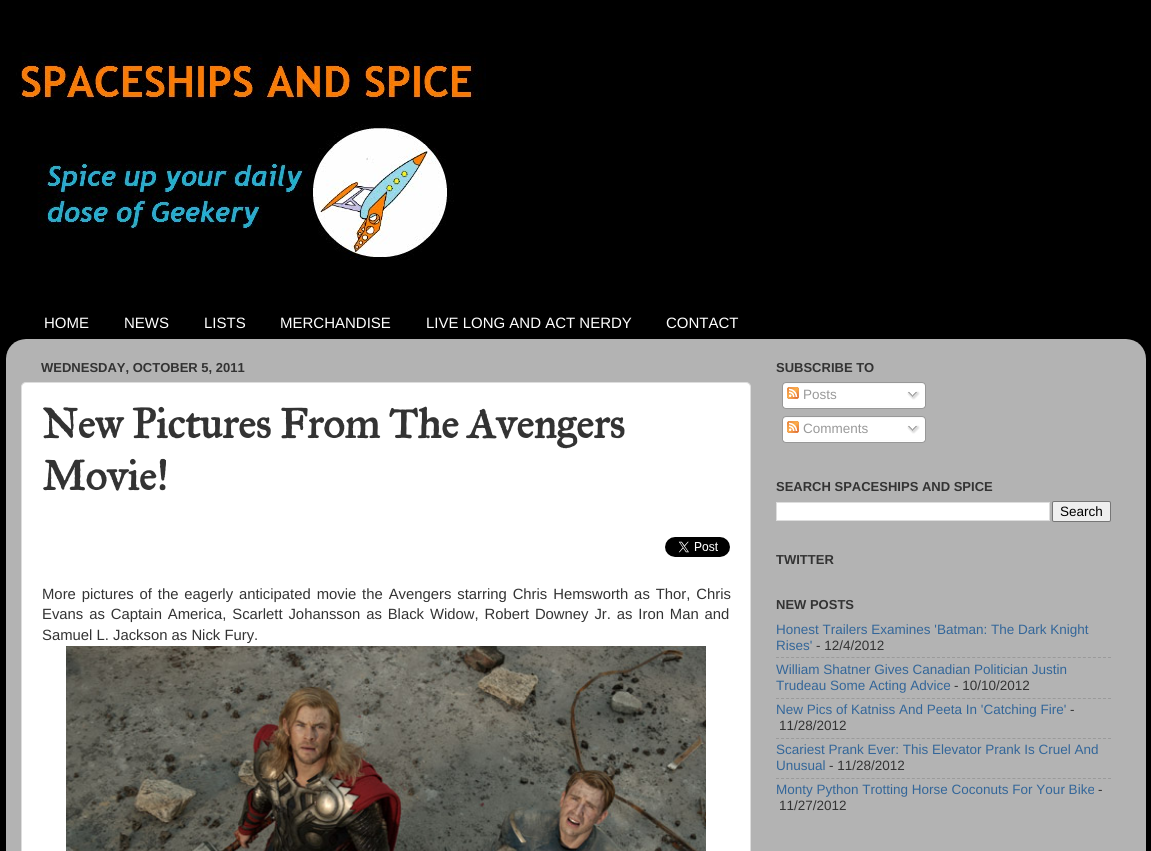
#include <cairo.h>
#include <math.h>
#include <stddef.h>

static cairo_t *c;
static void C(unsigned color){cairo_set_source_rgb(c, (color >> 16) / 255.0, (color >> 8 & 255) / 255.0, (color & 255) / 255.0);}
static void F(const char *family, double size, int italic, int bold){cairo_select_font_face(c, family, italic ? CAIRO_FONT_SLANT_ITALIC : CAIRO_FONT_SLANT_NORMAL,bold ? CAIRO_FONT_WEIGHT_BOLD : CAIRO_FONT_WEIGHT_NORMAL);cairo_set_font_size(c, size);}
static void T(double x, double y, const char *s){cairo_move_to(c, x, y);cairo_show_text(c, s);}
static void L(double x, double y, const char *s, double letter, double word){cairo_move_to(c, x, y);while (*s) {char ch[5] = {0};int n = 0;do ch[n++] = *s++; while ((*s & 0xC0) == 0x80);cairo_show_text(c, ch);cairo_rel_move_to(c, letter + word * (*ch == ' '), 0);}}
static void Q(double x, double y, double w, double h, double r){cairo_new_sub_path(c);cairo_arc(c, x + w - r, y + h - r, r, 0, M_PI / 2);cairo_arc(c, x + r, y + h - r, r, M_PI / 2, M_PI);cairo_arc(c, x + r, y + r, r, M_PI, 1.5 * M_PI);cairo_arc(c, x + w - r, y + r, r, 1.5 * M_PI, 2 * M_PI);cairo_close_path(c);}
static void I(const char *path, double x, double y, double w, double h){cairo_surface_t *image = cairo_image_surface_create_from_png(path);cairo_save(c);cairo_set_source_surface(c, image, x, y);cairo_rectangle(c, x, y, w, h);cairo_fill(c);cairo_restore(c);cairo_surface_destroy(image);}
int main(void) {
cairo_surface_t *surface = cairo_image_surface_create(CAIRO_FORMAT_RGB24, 1151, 851);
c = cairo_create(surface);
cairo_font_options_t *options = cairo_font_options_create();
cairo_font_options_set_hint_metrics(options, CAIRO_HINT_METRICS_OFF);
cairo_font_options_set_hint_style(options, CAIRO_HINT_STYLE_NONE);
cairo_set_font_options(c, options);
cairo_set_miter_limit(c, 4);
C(0x000000);
cairo_paint(c);
I("1.png",16,52,470,208);
F("Liberation Sans",15,0,0);
C(0xffffff);
T(44,328,"HOME");
T(124,328,"NEWS");
T(204,328,"LISTS");
T(280,328,"MERCHANDISE");
T(426,328,"LIVE LONG AND ACT NERDY");
T(666,328,"CONTACT");
I("2.png",6,339,1140,512);
F("Liberation Sans",13,0,1);
C(0x333333);
T(41,372,"WEDNESDAY, OCTOBER 5, 2011");
C(0xffffff);
Q(21.5,382.5,729,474,4.5);
cairo_fill_preserve(c);
C(0xdddddd);
cairo_set_line_width(c,1);
cairo_stroke(c);
F("IM FELL Great Primer",42,0,1);
C(0x333333);
T(42,438,"New Pictures From The Avengers");
T(42,490,"Movie!");
I("3.png",665,537,65,20);
F("Liberation Sans",14.85,0,0);
L(42,599,"More pictures of the eagerly anticipated movie the Avengers starring Chris Hemsworth as Thor, Chris",0,1.75);
L(42,619,"Evans as Captain America, Scarlett Johansson as Black Widow, Robert Downey Jr. as Iron Man and",0,1.75);
T(42,640,"Samuel L. Jackson as Nick Fury.");
I("4.png",66,646,640,205);
F("Liberation Sans",13,0,1);
T(776,372,"SUBSCRIBE TO");
I("5.png",782,382,144,24);
I("6.png",787,387,12,12);
F("Liberation Sans",13.5,0,0);
C(0x999999);
T(803,399,"Posts");
I("7.png",907,391,13,9);
I("8.png",782,406,144,3);
I("5.png",782,416,144,24);
I("6.png",787,421,12,12);
T(803,433,"Comments");
I("7.png",907,425,13,9);
I("8.png",782,440,144,3);
F("Liberation Sans",13,0,1);
C(0x333333);
T(776,491,"SEARCH SPACESHIPS AND SPICE");
C(0xffffff);
cairo_rectangle(c,776.5,502.5,273,18);
cairo_fill_preserve(c);
C(0xdddddd);
cairo_stroke(c);
C(0xefefef);
Q(1052.5,501.5,58,20,1.5);
cairo_fill_preserve(c);
C(0x767676);
cairo_stroke(c);
F("Liberation Sans",13.5,0,0);
C(0x000000);
T(1060,516,"Search");
F("Liberation Sans",13,0,1);
C(0x333333);
T(776,564,"TWITTER");
T(776,609,"NEW POSTS");
F("Liberation Sans",13.5,0,0);
C(0x336699);
T(776,634,"Honest Trailers Examines 'Batman: The Dark Knight");
T(776,650,"Rises'");
C(0x333333);
T(816,650,"- 12/4/2012");
cairo_new_path(c);
cairo_move_to(c,776,657.5);
cairo_line_to(c,1111,657.5);
C(0x9a9a9a);
cairo_set_dash(c,(double[]){3,2.03},2,0);
cairo_stroke(c);
C(0x336699);
T(776,674,"William Shatner Gives Canadian Politician Justin");
T(776,690,"Trudeau Some Acting Advice");
C(0x333333);
T(954,690,"- 10/10/2012");
cairo_new_path(c);
cairo_move_to(c,776,698.5);
cairo_line_to(c,1111,698.5);
C(0x9a9a9a);
cairo_stroke(c);
C(0x336699);
T(776,714,"New Pics of Katniss And Peeta In 'Catching Fire'");
C(0x333333);
T(1070,714,"-");
T(779,730,"11/28/2012");
cairo_new_path(c);
cairo_move_to(c,776,738.5);
cairo_line_to(c,1111,738.5);
C(0x9a9a9a);
cairo_stroke(c);
C(0x336699);
T(776,754,"Scariest Prank Ever: This Elevator Prank Is Cruel And");
T(776,770,"Unusual");
C(0x333333);
T(829,770,"- 11/28/2012");
cairo_new_path(c);
cairo_move_to(c,776,778.5);
cairo_line_to(c,1111,778.5);
C(0x9a9a9a);
cairo_stroke(c);
C(0x336699);
T(776,794,"Monty Python Trotting Horse Coconuts For Your Bike");
C(0x333333);
T(1098,794,"-");
T(779,810,"11/27/2012");
cairo_surface_write_to_png(surface, "o.png");
cairo_font_options_destroy(options);
cairo_destroy(c);
cairo_surface_destroy(surface);
return 0;
}
